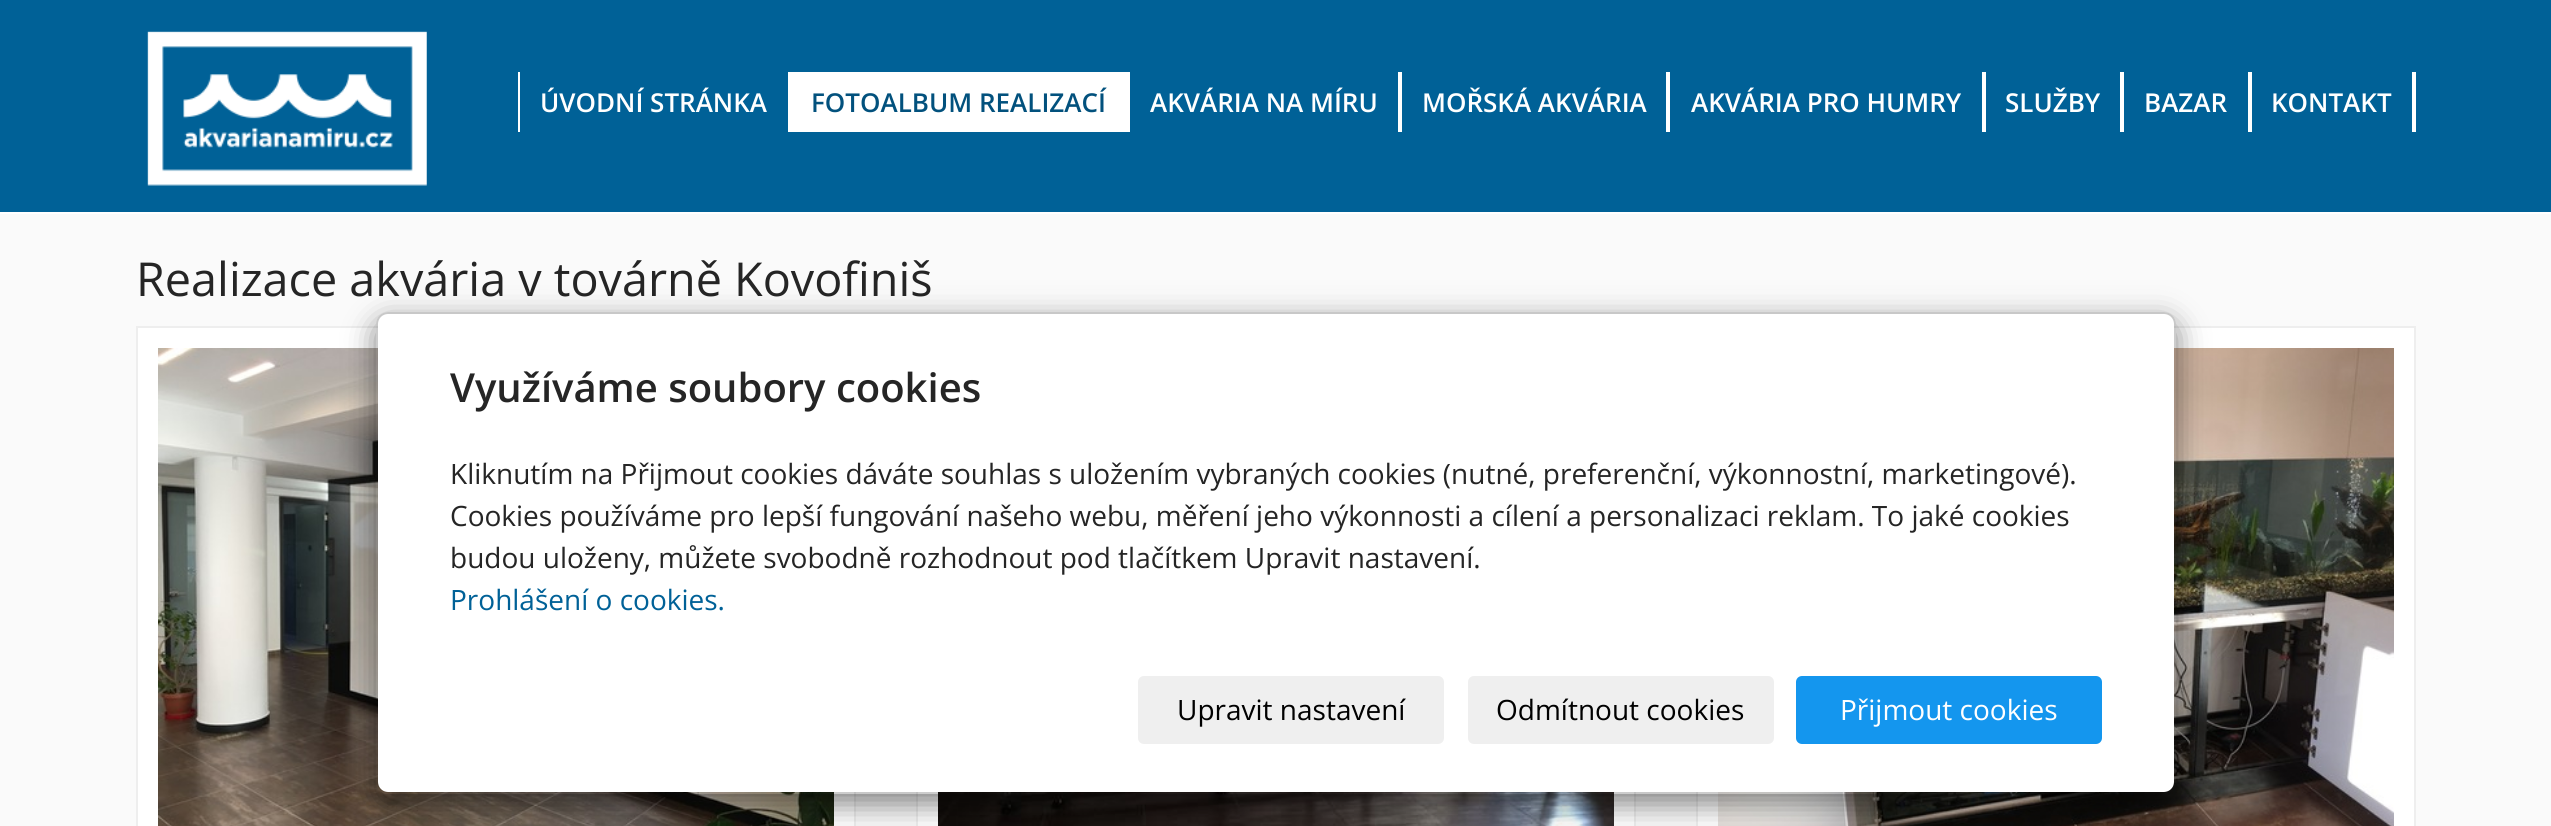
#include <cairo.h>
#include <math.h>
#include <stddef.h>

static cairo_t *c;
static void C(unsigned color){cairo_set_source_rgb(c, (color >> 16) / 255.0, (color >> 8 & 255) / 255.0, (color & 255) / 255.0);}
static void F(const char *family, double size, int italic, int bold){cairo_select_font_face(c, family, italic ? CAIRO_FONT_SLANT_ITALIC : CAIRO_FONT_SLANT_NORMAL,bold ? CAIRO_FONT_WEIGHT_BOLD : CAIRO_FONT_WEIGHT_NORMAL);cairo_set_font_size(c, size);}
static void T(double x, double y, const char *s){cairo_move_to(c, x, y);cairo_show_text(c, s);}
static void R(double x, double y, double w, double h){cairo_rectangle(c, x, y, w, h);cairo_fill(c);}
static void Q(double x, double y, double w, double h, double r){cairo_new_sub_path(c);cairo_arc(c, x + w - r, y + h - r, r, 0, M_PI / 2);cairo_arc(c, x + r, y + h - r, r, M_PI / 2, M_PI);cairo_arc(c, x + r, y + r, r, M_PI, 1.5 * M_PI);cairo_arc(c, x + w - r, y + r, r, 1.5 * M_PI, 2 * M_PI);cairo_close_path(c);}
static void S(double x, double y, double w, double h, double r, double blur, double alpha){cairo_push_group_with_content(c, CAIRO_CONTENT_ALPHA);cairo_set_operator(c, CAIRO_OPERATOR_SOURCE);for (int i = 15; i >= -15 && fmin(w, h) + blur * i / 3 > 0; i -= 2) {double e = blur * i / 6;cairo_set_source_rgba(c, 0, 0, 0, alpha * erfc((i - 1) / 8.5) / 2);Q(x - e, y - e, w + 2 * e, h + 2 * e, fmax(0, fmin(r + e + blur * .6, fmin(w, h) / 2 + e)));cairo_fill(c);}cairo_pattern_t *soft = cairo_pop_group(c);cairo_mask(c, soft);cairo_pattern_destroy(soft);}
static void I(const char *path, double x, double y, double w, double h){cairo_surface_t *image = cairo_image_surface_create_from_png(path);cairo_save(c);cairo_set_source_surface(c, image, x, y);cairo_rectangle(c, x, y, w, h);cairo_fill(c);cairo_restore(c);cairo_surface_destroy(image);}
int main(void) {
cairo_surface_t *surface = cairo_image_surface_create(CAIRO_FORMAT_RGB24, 2551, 826);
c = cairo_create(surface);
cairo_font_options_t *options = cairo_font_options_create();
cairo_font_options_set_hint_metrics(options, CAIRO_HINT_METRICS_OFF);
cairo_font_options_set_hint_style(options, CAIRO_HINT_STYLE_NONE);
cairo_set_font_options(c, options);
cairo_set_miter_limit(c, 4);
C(0xfafafa);
cairo_paint(c);
C(0x006197);
R(0,0,2551,212);
I("1.png",147,31,280,155);
C(0xffffff);
R(0,212,2551,2);
R(788,72,4,60);
R(518,72,2,60);
F("Open Sans SemiBold",26,0,0);
T(540,112,"ÚVODNÍ STRÁNKA");
R(792,72,338,60);
C(0x02517d);
T(811,112,"FOTOALBUM REALIZACÍ");
C(0xffffff);
R(1398,72,4,60);
T(1150,112,"AKVÁRIA NA MÍRU");
R(1666,72,4,60);
T(1422,112,"MOŘSKÁ AKVÁRIA");
R(1982,72,4,60);
T(1691,112,"AKVÁRIA PRO HUMRY");
R(2120,72,4,60);
T(2005,112,"SLUŽBY");
R(2248,72,4,60);
T(2144,112,"BAZAR");
R(2412,72,4,60);
T(2271,112,"KONTAKT");
F("Open Sans",46.75,0,0);
C(0x252525);
T(136,296,"Realizace akvária v továrně Kovofiniš");
C(0xffffff);
cairo_rectangle(c,137,327,718,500);
cairo_fill_preserve(c);
C(0xeeeeee);
cairo_stroke(c);
I("2.png",158,348,676,478);
C(0xffffff);
R(918,792,716,34);
cairo_rectangle(c,917,327,718,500);
C(0xeeeeee);
cairo_stroke(c);
I("3.png",938,792,676,34);
C(0xffffff);
cairo_rectangle(c,1697,327,718,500);
cairo_fill_preserve(c);
C(0xeeeeee);
cairo_stroke(c);
I("4.png",1718,348,676,478);
cairo_save(c);
cairo_set_fill_rule(c,CAIRO_FILL_RULE_EVEN_ODD);
cairo_new_path(c);
cairo_move_to(c,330,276);
cairo_line_to(c,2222,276);
cairo_line_to(c,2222,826);
cairo_line_to(c,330,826);
cairo_close_path(c);
cairo_move_to(c,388,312);
cairo_line_to(c,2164,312);
cairo_curve_to(c,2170.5,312,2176,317.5,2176,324);
cairo_line_to(c,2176,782);
cairo_curve_to(c,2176,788.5,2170.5,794,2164,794);
cairo_line_to(c,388,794);
cairo_curve_to(c,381.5,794,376,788.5,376,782);
cairo_line_to(c,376,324);
cairo_curve_to(c,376,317.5,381.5,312,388,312);
cairo_close_path(c);
cairo_clip(c);
C(0x000000);
S(376,322,1800,482,12,15,.5);
cairo_restore(c);
C(0xffffff);
Q(378,314,1796,478,10);
cairo_fill(c);
Q(377,313,1798,480,11);
cairo_set_source_rgba(c,0,0,0,0.2);
cairo_stroke(c);
F("Open Sans SemiBold",40,0,0);
C(0x252525);
T(450,402,"Využíváme soubory cookies");
F("Open Sans",28,0,0);
T(450,484,"Kliknutím na Přijmout cookies dáváte souhlas s uložením vybraných cookies (nutné, preferenční, výkonnostní, marketingové).");
T(450,526,"Cookies používáme pro lepší fungování našeho webu, měření jeho výkonnosti a cílení a personalizaci reklam. To jaké cookies");
T(450,568,"budou uloženy, můžete svobodně rozhodnout pod tlačítkem Upravit nastavení.");
C(0x006197);
T(450,610,"Prohlášení o cookies.");
C(0xefefef);
Q(1138,676,306,68,6);
cairo_fill(c);
C(0x000000);
T(1177,720,"Upravit nastavení");
C(0xefefef);
Q(1468,676,306,68,6);
cairo_fill(c);
C(0x000000);
T(1496,720,"Odmítnout cookies");
C(0x1496ee);
Q(1797,677,304,66,5);
cairo_fill_preserve(c);
cairo_stroke(c);
C(0xffffff);
T(1840,720,"Přijmout cookies");
cairo_surface_write_to_png(surface, "o.png");
cairo_font_options_destroy(options);
cairo_destroy(c);
cairo_surface_destroy(surface);
return 0;
}
